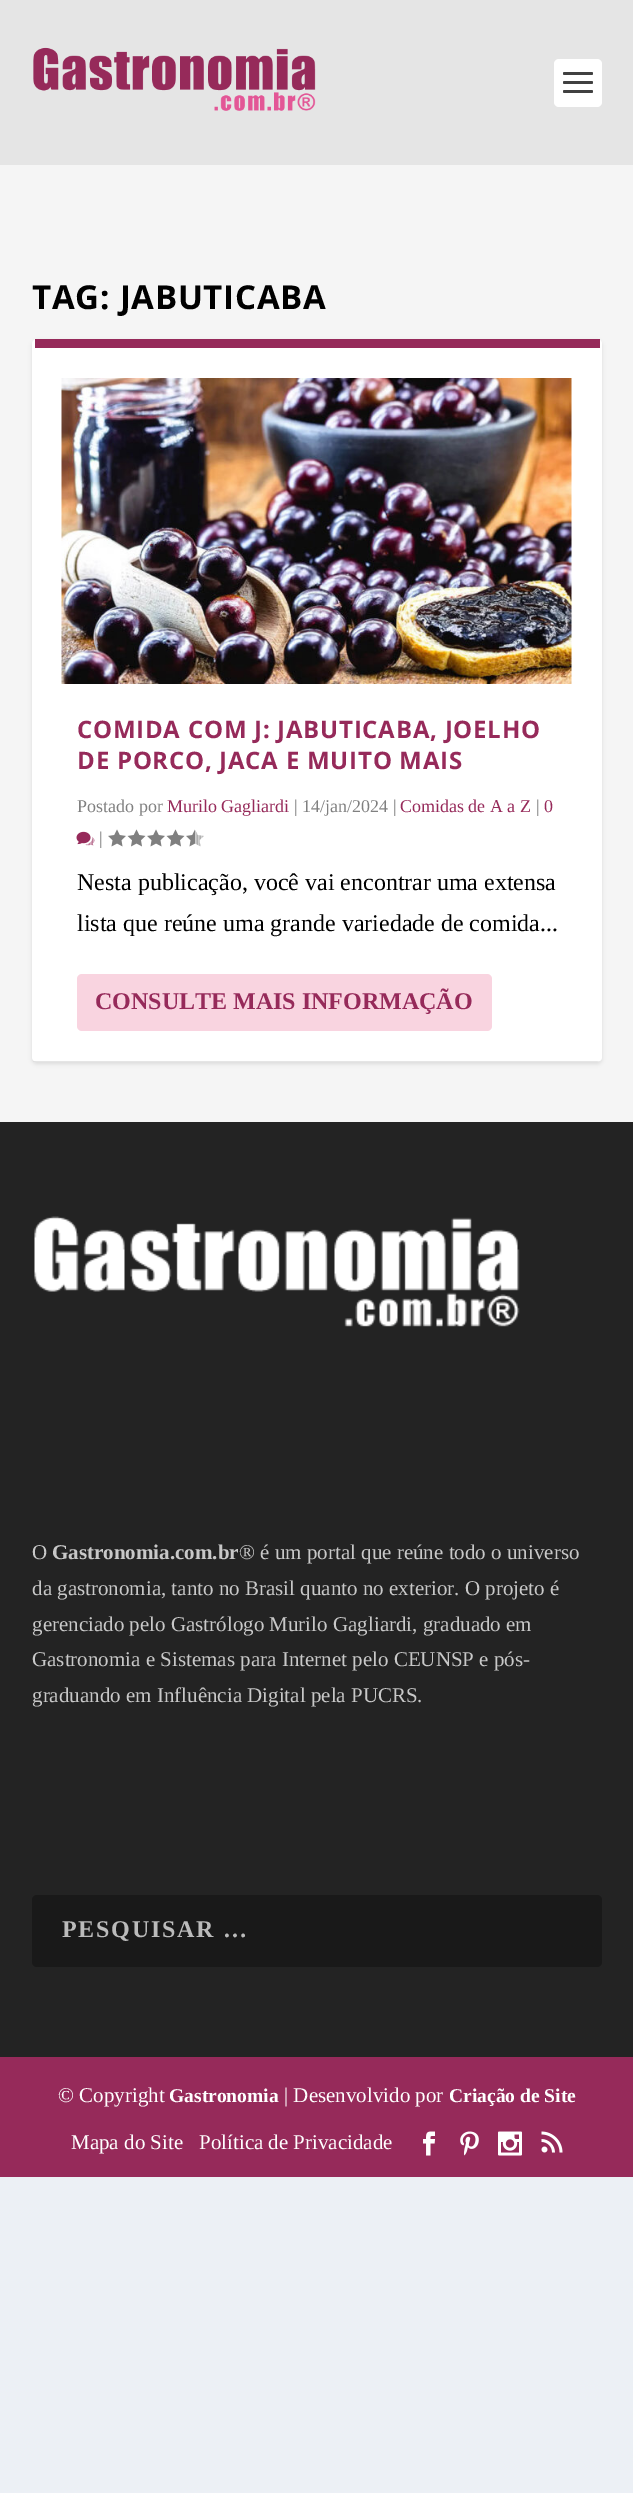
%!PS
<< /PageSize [633 2493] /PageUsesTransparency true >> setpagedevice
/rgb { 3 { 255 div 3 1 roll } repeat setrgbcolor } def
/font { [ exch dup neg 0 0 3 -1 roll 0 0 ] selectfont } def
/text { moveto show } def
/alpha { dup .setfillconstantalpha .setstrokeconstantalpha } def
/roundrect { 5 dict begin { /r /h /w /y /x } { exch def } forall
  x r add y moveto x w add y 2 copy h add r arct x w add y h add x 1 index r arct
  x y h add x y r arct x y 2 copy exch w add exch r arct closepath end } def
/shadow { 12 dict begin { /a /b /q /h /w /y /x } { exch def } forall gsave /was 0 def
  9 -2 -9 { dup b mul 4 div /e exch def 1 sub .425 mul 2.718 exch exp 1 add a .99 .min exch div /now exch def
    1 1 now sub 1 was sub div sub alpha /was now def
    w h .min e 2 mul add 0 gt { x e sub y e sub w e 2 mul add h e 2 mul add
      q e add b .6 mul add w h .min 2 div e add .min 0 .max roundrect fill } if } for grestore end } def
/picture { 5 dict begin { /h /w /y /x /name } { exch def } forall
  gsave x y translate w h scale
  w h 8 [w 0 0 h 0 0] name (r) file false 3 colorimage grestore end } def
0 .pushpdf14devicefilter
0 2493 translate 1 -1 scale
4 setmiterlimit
236 240 245 rgb
0 0 633 2493 rectfill
245 245 245 rgb
0 165 633 957 rectfill
229 229 229 rgb
0 0 633 165 rectfill
(img_01.rgb) 33 47 283 64 picture
255 255 255 rgb
554 59 48 48 5 roundrect fill
64 64 64 rgb
563 72 30 3 1.5 roundrect fill
563 81 30 3 1.5 roundrect fill
563 90 30 3 1.5 roundrect fill
0 0 0 rgb
32 341 570 723 5 2 0.1 shadow
255 255 255 rgb
32 339 570 723 5 roundrect fill
150 42 90 rgb
35 339 565 9 rectfill
0.1 alpha
0 0 0 rgb
600 1061 moveto -3 1 rlineto -467 0 rlineto -94 0 rlineto -3 -1 rlineto closepath fill
1 alpha
(img_02.rgb) 61 378 511 306 picture
(img_03.rgb) 76 831 19 15 picture
(img_04.rgb) 108 829 18 18 picture
(img_05.rgb) 127 829 19 18 picture
(img_04.rgb) 147 829 18 18 picture
(img_05.rgb) 166 829 19 18 picture
(img_06.rgb) 186 829 18 18 picture
249 212 224 rgb
77 974 415 57 5 roundrect fill
35 35 35 rgb
0 1122 633 935 rectfill
(img_07.rgb) 34 1216 486 111 picture
25 25 25 rgb
32 1895 570 72 5 roundrect fill
150 42 90 rgb
0 2057 633 120 rectfill
(img_08.rgb) 423 2131 13 25 picture
(img_09.rgb) 460 2131 19 25 picture
(img_10.rgb) 498 2131 24 25 picture
(img_11.rgb) 541 2131 22 22 picture
/OpenSans-Bold 33 font
0 0 0 rgb
32 309 moveto 0.75 0 (TAG: JABUTICABA) ashow
/OpenSans-Bold 24 font
150 42 90 rgb
77 738 moveto 0.75 0 (COMIDA COM J: JABUTICABA, JOELHO) ashow
77 769 moveto 0.75 0 (DE PORCO, JACA E MUITO MAIS) ashow
/LiberationSerif-Regular 18 font
128 128 128 rgb
(Postado por) 77 812 text
150 42 90 rgb
(Murilo Gagliardi) 167 812 text
128 128 128 rgb
(| 14/jan/2024 |) 294 812 text
150 42 90 rgb
(Comidas de A a Z) 400 812 text
128 128 128 rgb
(|) 536 812 text
150 42 90 rgb
(0) 544 812 text
128 128 128 rgb
(|) 99 844 text
/LiberationSerif-Regular 24 font
0 0 0 rgb
(Nesta publicação, você vai encontrar uma extensa) 77 890 text
(lista que reúne uma grande variedade de comida...) 77 931 text
/LiberationSerif-Bold 24 font
150 42 90 rgb
(CONSULTE MAIS INFORMAÇÃO) 95 1009 text
/LiberationSerif-Regular 21 font
200 200 200 rgb
(O) 32 1559 text
/LiberationSerif-Bold 21 font
(Gastronomia.com.br) 52 1559 text
/LiberationSerif-Regular 21 font
(® é um portal que reúne todo o universo) 239 1559 text
(da gastronomia, tanto no Brasil quanto no exterior. O projeto é) 32 1595 text
(gerenciado pelo Gastrólogo Murilo Gagliardi, graduado em) 32 1631 text
(Gastronomia e Sistemas para Internet pelo CEUNSP e pós-) 32 1666 text
(graduando em Influência Digital pela PUCRS.) 32 1702 text
/LiberationSerif-Bold 24 font
187 187 187 rgb
62 1937 moveto 1.75 0 (PESQUISAR …) ashow
/LiberationSerif-Regular 21 font
255 255 255 rgb
(© Copyright) 58 2102 text
/LiberationSerif-Bold 19.5 font
(Gastronomia) 169 2102 text
/LiberationSerif-Regular 21 font
(| Desenvolvido por) 284 2102 text
/LiberationSerif-Bold 19.5 font
(Criação de Site) 449 2102 text
/LiberationSerif-Regular 21 font
(Mapa do Site) 71 2149 text
(Política de Privacidade) 199 2149 text
.poppdf14devicefilter showpage
